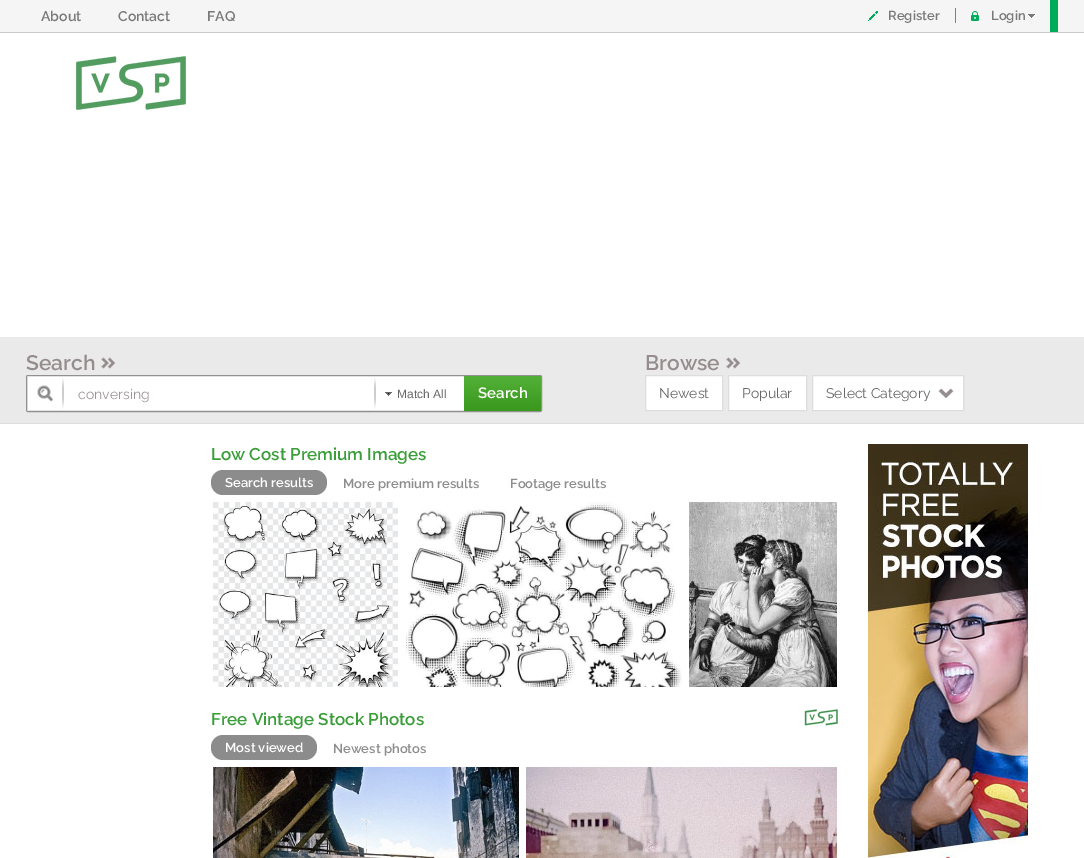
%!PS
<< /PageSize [1084 858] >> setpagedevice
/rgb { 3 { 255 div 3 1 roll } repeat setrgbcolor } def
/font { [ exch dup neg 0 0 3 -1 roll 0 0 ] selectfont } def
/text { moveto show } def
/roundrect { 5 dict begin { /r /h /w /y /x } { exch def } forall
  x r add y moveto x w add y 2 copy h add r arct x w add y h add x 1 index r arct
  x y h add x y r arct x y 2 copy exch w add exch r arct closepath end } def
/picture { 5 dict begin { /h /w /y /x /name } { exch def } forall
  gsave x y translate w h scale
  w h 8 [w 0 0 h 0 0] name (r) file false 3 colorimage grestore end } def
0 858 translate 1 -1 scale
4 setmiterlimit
235 234 234 rgb
0 0 1084 858 rectfill
245 245 245 rgb
0 0 1084 32 rectfill
202 202 202 rgb
0 32 1084 1 rectfill
0 171 90 rgb
1050 0 8 32 rectfill
(img_01.rgb) 868 11 10 10 picture
129 129 129 rgb
955 8 1 15 rectfill
(img_02.rgb) 971 11 8 10 picture
(img_03.rgb) 1028 14 7 4 picture
255 255 255 rgb
0 33 1084 304 rectfill
(img_04.rgb) 76 56 110 54 picture
222 221 221 rgb
0 423 1084 1 rectfill
(img_05.rgb) 101 357 14 12 picture
255 255 255 rgb
26.5 375.5 515 36 1.5 roundrect gsave fill grestore
145 145 145 rgb
stroke
(img_06.rgb) 37 378 27 31 picture
227 227 227 rgb
27 376 437 1 rectfill
27 410 437 1 rectfill
216 216 216 rgb
27 376 1 35 rectfill
(img_07.rgb) 374 377 2 32 picture
(img_08.rgb) 385 392 7 4 picture
(img_09.rgb) 464 376 77 35 picture
(img_05.rgb) 726 357 14 12 picture
255 255 255 rgb
645.5 375.5 moveto 77 0 rlineto 0 35 rlineto -77 0 rlineto closepath gsave fill grestore
221 221 221 rgb
stroke
255 255 255 rgb
728.5 375.5 moveto 78 0 rlineto 0 35 rlineto -78 0 rlineto closepath gsave fill grestore
221 221 221 rgb
stroke
255 255 255 rgb
812.5 375.5 moveto 151 0 rlineto 0 35 rlineto -151 0 rlineto closepath gsave fill grestore
221 221 221 rgb
stroke
(img_10.rgb) 938 388 16 10 picture
255 255 255 rgb
0 424 1084 434 rectfill
140 140 140 rgb
211 470 116 25 12 roundrect fill
(img_11.rgb) 213 502 185 185 picture
(img_12.rgb) 405 502 277 185 picture
(img_13.rgb) 689 502 148 185 picture
(img_14.rgb) 804 709 34 17 picture
211 735 106 25 12 roundrect fill
(img_15.rgb) 213 767 306 91 picture
(img_16.rgb) 526 767 311 91 picture
(img_17.rgb) 868 444 160 414 picture
/Raleway-SemiBold 14 font
121 121 121 rgb
(About) 41 21 text
(Contact) 118 21 text
(FAQ) 207 21 text
/Raleway-SemiBold 13 font
(Register) 888 20 text
(Login) 991 20 text
/Raleway-SemiBold 21 font
149 140 141 rgb
(Search) 26 370 text
/Raleway-Regular 14 font
158 150 150 rgb
(conversing) 78 399 text
/LiberationSans-Regular 12 font
103 103 103 rgb
(Match All) 397 398 text
/Raleway-SemiBold 15 font
255 255 255 rgb
(Search) 478 398 text
/Raleway-SemiBold 21 font
149 140 141 rgb
(Browse) 645 370 text
/Raleway-Regular 14 font
103 103 103 rgb
(Newest) 659 398 text
(Popular) 742 398 text
(Select Category) 826 398 text
/Raleway-SemiBold 17 font
57 157 56 rgb
(Low Cost Premium Images) 211 460 text
/Raleway-SemiBold 13 font
255 255 255 rgb
(Search results) 225 487 text
140 140 140 rgb
(More premium results) 343 488 text
(Footage results) 510 488 text
/Raleway-SemiBold 17 font
57 157 56 rgb
(Free Vintage Stock Photos) 211 725 text
/Raleway-SemiBold 13 font
255 255 255 rgb
(Most viewed) 225 752 text
140 140 140 rgb
(Newest photos) 333 753 text
showpage
